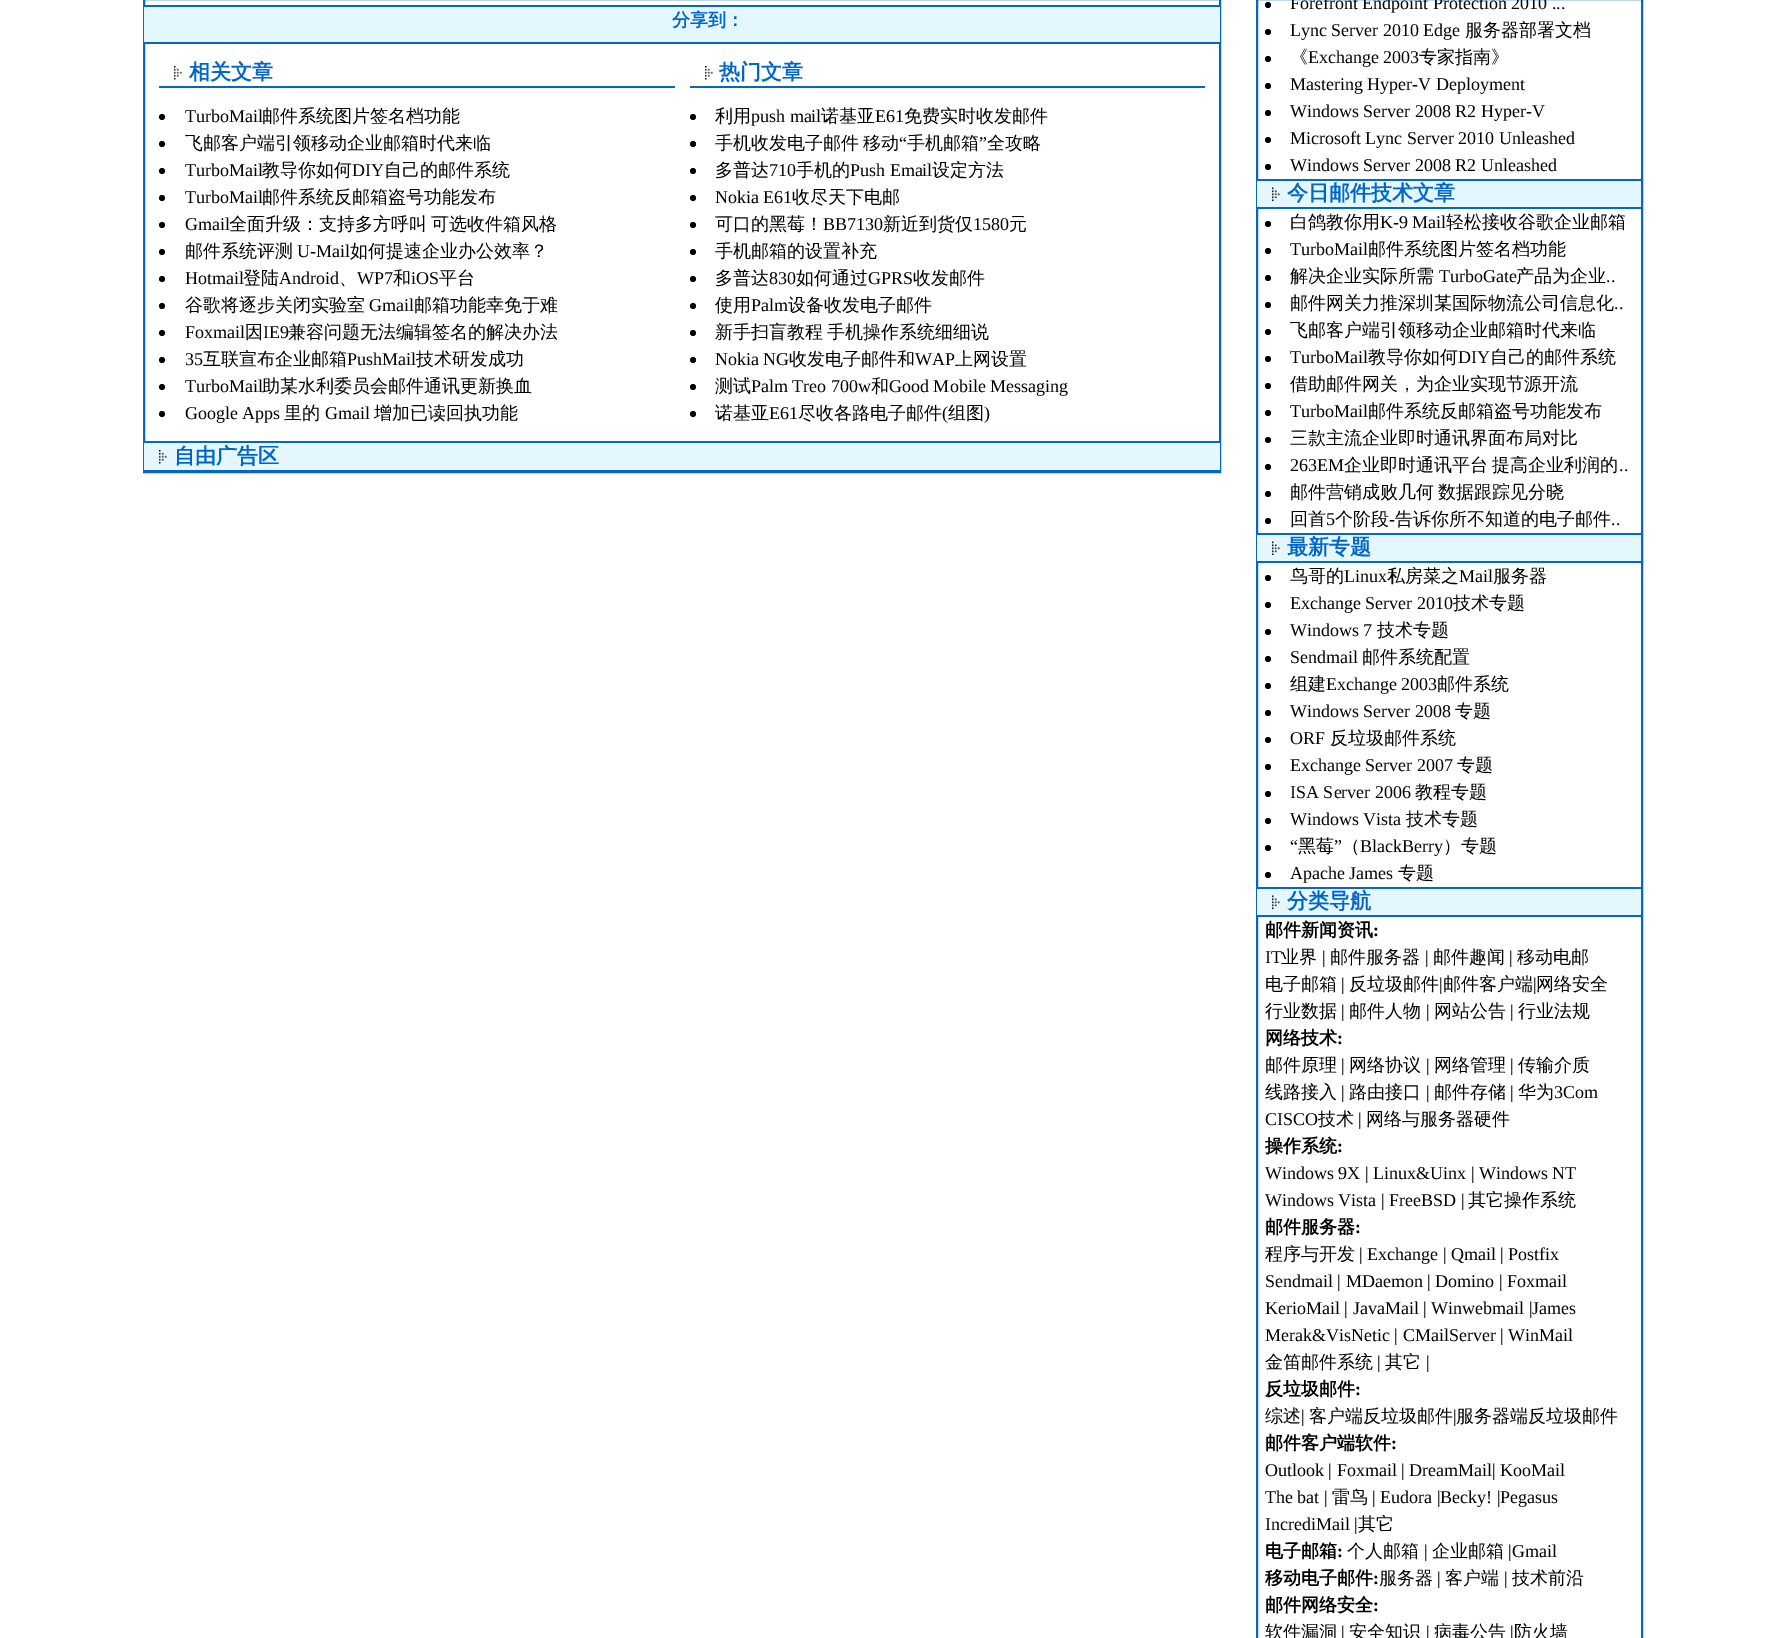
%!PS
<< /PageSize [1785 1638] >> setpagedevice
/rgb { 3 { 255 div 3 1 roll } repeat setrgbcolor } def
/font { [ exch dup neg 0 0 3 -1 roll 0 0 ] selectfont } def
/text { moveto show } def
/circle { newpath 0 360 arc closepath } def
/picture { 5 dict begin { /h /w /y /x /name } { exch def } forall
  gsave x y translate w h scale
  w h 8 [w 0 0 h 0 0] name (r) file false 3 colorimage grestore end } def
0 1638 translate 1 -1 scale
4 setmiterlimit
255 255 255 rgb
0 0 1785 1638 rectfill
7 102 192 rgb
2 setlinewidth
144 -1 1076 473 rectstroke
228 247 254 rgb
144 7 1076 35 rectfill
7 102 192 rgb
144 5 1076 2 rectfill
144 42 1076 2 rectfill
(img_01.rgb) 174 66 8 14 picture
159 86 516 2 rectfill
(img_02.rgb) 705 66 8 14 picture
690 86 515 2 rectfill
0 0 0 rgb
162 117 3 circle fill
162 144 3 circle fill
162 171 3 circle fill
162 198 3 circle fill
162 225 3 circle fill
162 252 3 circle fill
162 279 3 circle fill
162 306 3 circle fill
162 333 3 circle fill
162 360 3 circle fill
162 387 3 circle fill
162 414 3 circle fill
693 117 3 circle fill
693 144 3 circle fill
693 171 3 circle fill
693 198 3 circle fill
693 225 3 circle fill
693 252 3 circle fill
693 279 3 circle fill
693 306 3 circle fill
693 333 3 circle fill
693 360 3 circle fill
693 387 3 circle fill
693 414 3 circle fill
228 247 254 rgb
144 443 1076 27 rectfill
(img_03.rgb) 159 450 8 14 picture
7 102 192 rgb
144 441 1076 2 rectfill
144 470 1076 1 rectfill
1257 -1 385 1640 rectstroke
0 0 0 rgb
1268 5 3 circle fill
1268 32 3 circle fill
1268 59 3 circle fill
1268 86 3 circle fill
1268 113 3 circle fill
1268 140 3 circle fill
1268 167 3 circle fill
228 247 254 rgb
1257 181 384 26 rectfill
(img_04.rgb) 1272 187 8 14 picture
7 102 192 rgb
1257 179 384 2 rectfill
1257 207 384 2 rectfill
0 0 0 rgb
1268 224 3 circle fill
1268 251 3 circle fill
1268 278 3 circle fill
1268 305 3 circle fill
1268 332 3 circle fill
1268 359 3 circle fill
1268 386 3 circle fill
1268 413 3 circle fill
1268 440 3 circle fill
1268 467 3 circle fill
1268 494 3 circle fill
1268 521 3 circle fill
228 247 254 rgb
1257 535 384 26 rectfill
(img_04.rgb) 1272 541 8 14 picture
7 102 192 rgb
1257 533 384 2 rectfill
1257 561 384 2 rectfill
0 0 0 rgb
1268 578 3 circle fill
1268 605 3 circle fill
1268 632 3 circle fill
1268 659 3 circle fill
1268 686 3 circle fill
1268 713 3 circle fill
1268 740 3 circle fill
1268 767 3 circle fill
1268 794 3 circle fill
1268 821 3 circle fill
1268 848 3 circle fill
1268 875 3 circle fill
228 247 254 rgb
1257 889 384 26 rectfill
(img_04.rgb) 1272 895 8 14 picture
7 102 192 rgb
1257 887 384 2 rectfill
1257 915 384 2 rectfill
/WenQuanYiZenHei-Bold 18 font
0 102 203 rgb
(分享到：) 672 26 text
/WenQuanYiZenHei-Bold 21 font
(相关文章) 189 79 text
(热门文章) 719 79 text
/LiberationSerif-Regular 18 font
0 0 0 rgb
(TurboMail) 185 122 text
/WenQuanYiZenHei-Medium 18 font
(邮件系统图片签名档功能) 262 122 text
(飞邮客户端引领移动企业邮箱时代来临) 185 149 text
/LiberationSerif-Regular 18 font
(TurboMail) 185 176 text
/WenQuanYiZenHei-Medium 18 font
(教导你如何) 262 176 text
/LiberationSerif-Regular 18 font
(DIY) 352 176 text
/WenQuanYiZenHei-Medium 18 font
(自己的邮件系统) 384 176 text
/LiberationSerif-Regular 18 font
(TurboMail) 185 203 text
/WenQuanYiZenHei-Medium 18 font
(邮件系统反邮箱盗号功能发布) 262 203 text
/LiberationSerif-Regular 18 font
(Gmail) 185 230 text
/WenQuanYiZenHei-Medium 18 font
229 230 moveto -1 0 32 (全面升级：支持多方呼叫 可选收件箱风格) widthshow
(邮件系统评测) 185 257 text
/LiberationSerif-Regular 18 font
(U-Mail) 297 257 text
/WenQuanYiZenHei-Medium 18 font
(如何提速企业办公效率？) 350 257 text
/LiberationSerif-Regular 18 font
(Hotmail) 185 284 text
/WenQuanYiZenHei-Medium 18 font
(登陆) 243 284 text
/LiberationSerif-Regular 18 font
(Android) 279 284 text
(WP7) 357 284 text
/WenQuanYiZenHei-Medium 18 font
(和) 393 284 text
/LiberationSerif-Regular 18 font
(iOS) 411 284 text
/WenQuanYiZenHei-Medium 18 font
(平台) 439 284 text
(、) 339 284 text
(谷歌将逐步关闭实验室) 185 311 text
/LiberationSerif-Regular 18 font
(Gmail) 369 311 text
/WenQuanYiZenHei-Medium 18 font
(邮箱功能幸免于难) 414 311 text
/LiberationSerif-Regular 18 font
(Foxmail) 185 338 text
/WenQuanYiZenHei-Medium 18 font
(因) 245 338 text
/LiberationSerif-Regular 18 font
(IE9) 263 338 text
/WenQuanYiZenHei-Medium 18 font
(兼容问题无法编辑签名的解决办法) 288 338 text
/LiberationSerif-Regular 18 font
(35) 185 365 text
/WenQuanYiZenHei-Medium 18 font
(互联宣布企业邮箱) 203 365 text
/LiberationSerif-Regular 18 font
(PushMail) 347 365 text
/WenQuanYiZenHei-Medium 18 font
(技术研发成功) 416 365 text
/LiberationSerif-Regular 18 font
(TurboMail) 185 392 text
/WenQuanYiZenHei-Medium 18 font
(助某水利委员会邮件通讯更新换血) 262 392 text
/LiberationSerif-Regular 18 font
(Google Apps) 185 419 text
/WenQuanYiZenHei-Medium 18 font
(里的) 284 419 text
/LiberationSerif-Regular 18 font
(Gmail) 325 419 text
/WenQuanYiZenHei-Medium 18 font
(增加已读回执功能) 374 419 text
(利用) 715 122 text
/LiberationSerif-Regular 18 font
(push mail) 751 122 text
/WenQuanYiZenHei-Medium 18 font
(诺基亚) 821 122 text
/LiberationSerif-Regular 18 font
(E61) 875 122 text
/WenQuanYiZenHei-Medium 18 font
(免费实时收发邮件) 904 122 text
715 149 moveto -1 0 32 (手机收发电子邮件 移动) widthshow
/LiberationSerif-Regular 18 font
(“) 899 149 text
/WenQuanYiZenHei-Medium 18 font
(手机邮箱) 907 149 text
/LiberationSerif-Regular 18 font
(”) 979 149 text
/WenQuanYiZenHei-Medium 18 font
(全攻略) 987 149 text
(多普达) 715 176 text
/LiberationSerif-Regular 18 font
(710) 769 176 text
/WenQuanYiZenHei-Medium 18 font
(手机的) 796 176 text
/LiberationSerif-Regular 18 font
(Push Email) 850 176 text
/WenQuanYiZenHei-Medium 18 font
(设定方法) 932 176 text
/LiberationSerif-Regular 18 font
(Nokia E61) 715 203 text
/WenQuanYiZenHei-Medium 18 font
(收尽天下电邮) 792 203 text
(可口的黑莓！) 715 230 text
/LiberationSerif-Regular 18 font
(BB7130) 823 230 text
/WenQuanYiZenHei-Medium 18 font
(新近到货仅) 883 230 text
/LiberationSerif-Regular 18 font
(1580) 973 230 text
/WenQuanYiZenHei-Medium 18 font
(元) 1009 230 text
(手机邮箱的设置补充) 715 257 text
(多普达) 715 284 text
/LiberationSerif-Regular 18 font
(830) 769 284 text
/WenQuanYiZenHei-Medium 18 font
(如何通过) 796 284 text
/LiberationSerif-Regular 18 font
(GPRS) 868 284 text
/WenQuanYiZenHei-Medium 18 font
(收发邮件) 913 284 text
(使用) 715 311 text
/LiberationSerif-Regular 18 font
(Palm) 751 311 text
/WenQuanYiZenHei-Medium 18 font
(设备收发电子邮件) 788 311 text
715 338 moveto -1 0 32 (新手扫盲教程 手机操作系统细细说) widthshow
/LiberationSerif-Regular 18 font
(Nokia NG) 715 365 text
/WenQuanYiZenHei-Medium 18 font
(收发电子邮件和) 789 365 text
/LiberationSerif-Regular 18 font
(WAP) 915 365 text
/WenQuanYiZenHei-Medium 18 font
(上网设置) 955 365 text
(测试) 715 392 text
/LiberationSerif-Regular 18 font
(Palm Treo 700w) 751 392 text
/WenQuanYiZenHei-Medium 18 font
(和) 871 392 text
/LiberationSerif-Regular 18 font
(Good Mobile Messaging) 889 392 text
/WenQuanYiZenHei-Medium 18 font
(诺基亚) 715 419 text
/LiberationSerif-Regular 18 font
(E61) 769 419 text
/WenQuanYiZenHei-Medium 18 font
(尽收各路电子邮件) 798 419 text
/LiberationSerif-Regular 18 font
(\() 942 419 text
/WenQuanYiZenHei-Medium 18 font
(组图) 948 419 text
/LiberationSerif-Regular 18 font
(\)) 984 419 text
/WenQuanYiZenHei-Bold 21 font
0 102 203 rgb
(自由广告区) 174 463 text
/LiberationSerif-Regular 18 font
0 0 0 rgb
(Forefront Endpoint Protection 2010 ...) 1290 9 text
(Lync Server 2010 Edge) 1290 36 text
/WenQuanYiZenHei-Medium 18 font
(服务器部署文档) 1465 36 text
(《) 1290 63 text
/LiberationSerif-Regular 18 font
(Exchange 2003) 1308 63 text
/WenQuanYiZenHei-Medium 18 font
(专家指南》) 1419 63 text
/LiberationSerif-Regular 18 font
(Mastering Hyper-V Deployment) 1290 90 text
(Windows Server 2008 R2 Hyper-V) 1290 117 text
(Microsoft Lync Server 2010 Unleashed) 1290 144 text
(Windows Server 2008 R2 Unleashed) 1290 171 text
/WenQuanYiZenHei-Bold 21 font
0 102 203 rgb
(今日邮件技术文章) 1287 200 text
/WenQuanYiZenHei-Medium 18 font
0 0 0 rgb
(白鸽教你用) 1290 228 text
/LiberationSerif-Regular 18 font
(K-9 Mail) 1380 228 text
/WenQuanYiZenHei-Medium 18 font
(轻松接收谷歌企业邮箱) 1446 228 text
/LiberationSerif-Regular 18 font
(TurboMail) 1290 255 text
/WenQuanYiZenHei-Medium 18 font
(邮件系统图片签名档功能) 1368 255 text
(解决企业实际所需) 1290 282 text
/LiberationSerif-Regular 18 font
(TurboGate) 1439 282 text
/WenQuanYiZenHei-Medium 18 font
(产品为企业) 1516 282 text
/LiberationSerif-Regular 18 font
(..) 1606 282 text
/WenQuanYiZenHei-Medium 18 font
(邮件网关力推深圳某国际物流公司信息化) 1290 309 text
/LiberationSerif-Regular 18 font
(..) 1614 309 text
/WenQuanYiZenHei-Medium 18 font
(飞邮客户端引领移动企业邮箱时代来临) 1290 336 text
/LiberationSerif-Regular 18 font
(TurboMail) 1290 363 text
/WenQuanYiZenHei-Medium 18 font
(教导你如何) 1368 363 text
/LiberationSerif-Regular 18 font
(DIY) 1458 363 text
/WenQuanYiZenHei-Medium 18 font
(自己的邮件系统) 1490 363 text
(借助邮件网关，为企业实现节源开流) 1290 390 text
/LiberationSerif-Regular 18 font
(TurboMail) 1290 417 text
/WenQuanYiZenHei-Medium 18 font
(邮件系统反邮箱盗号功能发布) 1368 417 text
(三款主流企业即时通讯界面布局对比) 1290 444 text
/LiberationSerif-Regular 18 font
(263EM) 1290 471 text
/WenQuanYiZenHei-Medium 18 font
1344 471 moveto -1 0 32 (企业即时通讯平台 提高企业利润的) widthshow
/LiberationSerif-Regular 18 font
(..) 1619 471 text
/WenQuanYiZenHei-Medium 18 font
1290 498 moveto -1 0 32 (邮件营销成败几何 数据跟踪见分晓) widthshow
(回首) 1290 525 text
/LiberationSerif-Regular 18 font
(5) 1326 525 text
/WenQuanYiZenHei-Medium 18 font
(个阶段) 1335 525 text
/LiberationSerif-Regular 18 font
(-) 1389 525 text
/WenQuanYiZenHei-Medium 18 font
(告诉你所不知道的电子邮件) 1395 525 text
/LiberationSerif-Regular 18 font
(..) 1611 525 text
/WenQuanYiZenHei-Bold 21 font
0 102 203 rgb
(最新专题) 1287 554 text
/WenQuanYiZenHei-Medium 18 font
0 0 0 rgb
(鸟哥的) 1290 582 text
/LiberationSerif-Regular 18 font
(Linux) 1344 582 text
/WenQuanYiZenHei-Medium 18 font
(私房菜之) 1387 582 text
/LiberationSerif-Regular 18 font
(Mail) 1459 582 text
/WenQuanYiZenHei-Medium 18 font
(服务器) 1493 582 text
/LiberationSerif-Regular 18 font
(Exchange Server 2010) 1290 609 text
/WenQuanYiZenHei-Medium 18 font
(技术专题) 1453 609 text
/LiberationSerif-Regular 18 font
(Windows 7) 1290 636 text
/WenQuanYiZenHei-Medium 18 font
(技术专题) 1377 636 text
/LiberationSerif-Regular 18 font
(Sendmail) 1290 663 text
/WenQuanYiZenHei-Medium 18 font
(邮件系统配置) 1362 663 text
(组建) 1290 690 text
/LiberationSerif-Regular 18 font
(Exchange 2003) 1326 690 text
/WenQuanYiZenHei-Medium 18 font
(邮件系统) 1437 690 text
/LiberationSerif-Regular 18 font
(Windows Server 2008) 1290 717 text
/WenQuanYiZenHei-Medium 18 font
(专题) 1455 717 text
/LiberationSerif-Regular 18 font
(ORF) 1290 744 text
/WenQuanYiZenHei-Medium 18 font
(反垃圾邮件系统) 1330 744 text
/LiberationSerif-Regular 18 font
(Exchange Server 2007) 1290 771 text
/WenQuanYiZenHei-Medium 18 font
(专题) 1457 771 text
/LiberationSerif-Regular 18 font
(ISA Server 2006) 1290 798 text
/WenQuanYiZenHei-Medium 18 font
(教程专题) 1415 798 text
/LiberationSerif-Regular 18 font
(Windows Vista) 1290 825 text
/WenQuanYiZenHei-Medium 18 font
(技术专题) 1406 825 text
/LiberationSerif-Regular 18 font
(“) 1290 852 text
/WenQuanYiZenHei-Medium 18 font
(黑莓) 1298 852 text
/LiberationSerif-Regular 18 font
(”) 1334 852 text
/WenQuanYiZenHei-Medium 18 font
(（) 1342 852 text
/LiberationSerif-Regular 18 font
(BlackBerry) 1360 852 text
/WenQuanYiZenHei-Medium 18 font
(）专题) 1443 852 text
/LiberationSerif-Regular 18 font
(Apache James) 1290 879 text
/WenQuanYiZenHei-Medium 18 font
(专题) 1398 879 text
/WenQuanYiZenHei-Bold 21 font
0 102 203 rgb
(分类导航) 1287 908 text
/WenQuanYiZenHei-Bold 18 font
0 0 0 rgb
(邮件新闻资讯) 1265 936 text
/LiberationSerif-Bold 18 font
(:) 1373 936 text
/LiberationSerif-Regular 18 font
(IT) 1265 963 text
/WenQuanYiZenHei-Medium 18 font
(业界) 1281 963 text
/LiberationSerif-Regular 18 font
(|) 1322 963 text
/WenQuanYiZenHei-Medium 18 font
(邮件服务器) 1330 963 text
/LiberationSerif-Regular 18 font
(|) 1425 963 text
/WenQuanYiZenHei-Medium 18 font
(邮件趣闻) 1433 963 text
/LiberationSerif-Regular 18 font
(|) 1509 963 text
/WenQuanYiZenHei-Medium 18 font
(移动电邮) 1517 963 text
(电子邮箱) 1265 990 text
/LiberationSerif-Regular 18 font
(|) 1341 990 text
/WenQuanYiZenHei-Medium 18 font
(反垃圾邮件) 1349 990 text
/LiberationSerif-Regular 18 font
(|) 1439 990 text
/WenQuanYiZenHei-Medium 18 font
(邮件客户端) 1443 990 text
/LiberationSerif-Regular 18 font
(|) 1533 990 text
/WenQuanYiZenHei-Medium 18 font
(网络安全) 1536 990 text
(行业数据) 1265 1017 text
/LiberationSerif-Regular 18 font
(|) 1341 1017 text
/WenQuanYiZenHei-Medium 18 font
(邮件人物) 1349 1017 text
/LiberationSerif-Regular 18 font
(|) 1426 1017 text
/WenQuanYiZenHei-Medium 18 font
(网站公告) 1434 1017 text
/LiberationSerif-Regular 18 font
(|) 1510 1017 text
/WenQuanYiZenHei-Medium 18 font
(行业法规) 1518 1017 text
/WenQuanYiZenHei-Bold 18 font
(网络技术) 1265 1044 text
/LiberationSerif-Bold 18 font
(:) 1337 1044 text
/WenQuanYiZenHei-Medium 18 font
(邮件原理) 1265 1071 text
/LiberationSerif-Regular 18 font
(|) 1341 1071 text
/WenQuanYiZenHei-Medium 18 font
(网络协议) 1349 1071 text
/LiberationSerif-Regular 18 font
(|) 1426 1071 text
/WenQuanYiZenHei-Medium 18 font
(网络管理) 1434 1071 text
/LiberationSerif-Regular 18 font
(|) 1510 1071 text
/WenQuanYiZenHei-Medium 18 font
(传输介质) 1518 1071 text
(线路接入) 1265 1098 text
/LiberationSerif-Regular 18 font
(|) 1341 1098 text
/WenQuanYiZenHei-Medium 18 font
(路由接口) 1349 1098 text
/LiberationSerif-Regular 18 font
(|) 1426 1098 text
/WenQuanYiZenHei-Medium 18 font
(邮件存储) 1434 1098 text
/LiberationSerif-Regular 18 font
(|) 1510 1098 text
/WenQuanYiZenHei-Medium 18 font
(华为) 1518 1098 text
/LiberationSerif-Regular 18 font
(3Com) 1554 1098 text
(CISCO) 1265 1125 text
/WenQuanYiZenHei-Medium 18 font
(技术) 1318 1125 text
/LiberationSerif-Regular 18 font
(|) 1358 1125 text
/WenQuanYiZenHei-Medium 18 font
(网络与服务器硬件) 1366 1125 text
/WenQuanYiZenHei-Bold 18 font
(操作系统) 1265 1152 text
/LiberationSerif-Bold 18 font
(:) 1337 1152 text
/LiberationSerif-Regular 18 font
(Windows 9X | Linux&Uinx | Windows NT) 1265 1179 text
(Windows Vista | FreeBSD |) 1265 1206 text
/WenQuanYiZenHei-Medium 18 font
(其它操作系统) 1468 1206 text
/WenQuanYiZenHei-Bold 18 font
(邮件服务器) 1265 1233 text
/LiberationSerif-Bold 18 font
(:) 1355 1233 text
/WenQuanYiZenHei-Medium 18 font
(程序与开发) 1265 1260 text
/LiberationSerif-Regular 18 font
(| Exchange | Qmail | Postfix) 1359 1260 text
(Sendmail | MDaemon | Domino | Foxmail) 1265 1287 text
(KerioMail | JavaMail | Winwebmail |James) 1265 1314 text
(Merak&VisNetic | CMailServer | WinMail) 1265 1341 text
/WenQuanYiZenHei-Medium 18 font
(金笛邮件系统) 1265 1368 text
/LiberationSerif-Regular 18 font
(|) 1377 1368 text
/WenQuanYiZenHei-Medium 18 font
(其它) 1385 1368 text
/LiberationSerif-Regular 18 font
(|) 1426 1368 text
/WenQuanYiZenHei-Bold 18 font
(反垃圾邮件) 1265 1395 text
/LiberationSerif-Bold 18 font
(:) 1355 1395 text
/WenQuanYiZenHei-Medium 18 font
(综述) 1265 1422 text
/LiberationSerif-Regular 18 font
(|) 1301 1422 text
/WenQuanYiZenHei-Medium 18 font
(客户端反垃圾邮件) 1309 1422 text
/LiberationSerif-Regular 18 font
(|) 1453 1422 text
/WenQuanYiZenHei-Medium 18 font
(服务器端反垃圾邮件) 1456 1422 text
/WenQuanYiZenHei-Bold 18 font
(邮件客户端软件) 1265 1449 text
/LiberationSerif-Bold 18 font
(:) 1391 1449 text
/LiberationSerif-Regular 18 font
(Outlook | Foxmail | DreamMail| KooMail) 1265 1476 text
(The bat |) 1265 1503 text
/WenQuanYiZenHei-Medium 18 font
(雷鸟) 1332 1503 text
/LiberationSerif-Regular 18 font
(| Eudora |Becky! |Pegasus) 1372 1503 text
(IncrediMail |) 1265 1530 text
/WenQuanYiZenHei-Medium 18 font
(其它) 1358 1530 text
/WenQuanYiZenHei-Bold 18 font
(电子邮箱) 1265 1557 text
/LiberationSerif-Bold 18 font
(:) 1337 1557 text
/WenQuanYiZenHei-Medium 18 font
(个人邮箱) 1347 1557 text
/LiberationSerif-Regular 18 font
(|) 1424 1557 text
/WenQuanYiZenHei-Medium 18 font
(企业邮箱) 1432 1557 text
/LiberationSerif-Regular 18 font
(|Gmail) 1508 1557 text
/WenQuanYiZenHei-Bold 18 font
(移动电子邮件) 1265 1584 text
/LiberationSerif-Bold 18 font
(:) 1373 1584 text
/WenQuanYiZenHei-Medium 18 font
(服务器) 1379 1584 text
/LiberationSerif-Regular 18 font
(|) 1437 1584 text
/WenQuanYiZenHei-Medium 18 font
(客户端) 1445 1584 text
/LiberationSerif-Regular 18 font
(|) 1504 1584 text
/WenQuanYiZenHei-Medium 18 font
(技术前沿) 1512 1584 text
/WenQuanYiZenHei-Bold 18 font
(邮件网络安全) 1265 1611 text
/LiberationSerif-Bold 18 font
(:) 1373 1611 text
/WenQuanYiZenHei-Medium 18 font
(软件漏洞) 1265 1638 text
/LiberationSerif-Regular 18 font
(|) 1341 1638 text
/WenQuanYiZenHei-Medium 18 font
(安全知识) 1349 1638 text
/LiberationSerif-Regular 18 font
(|) 1426 1638 text
/WenQuanYiZenHei-Medium 18 font
(病毒公告) 1434 1638 text
/LiberationSerif-Regular 18 font
(|) 1510 1638 text
/WenQuanYiZenHei-Medium 18 font
(防火墙) 1514 1638 text
showpage
